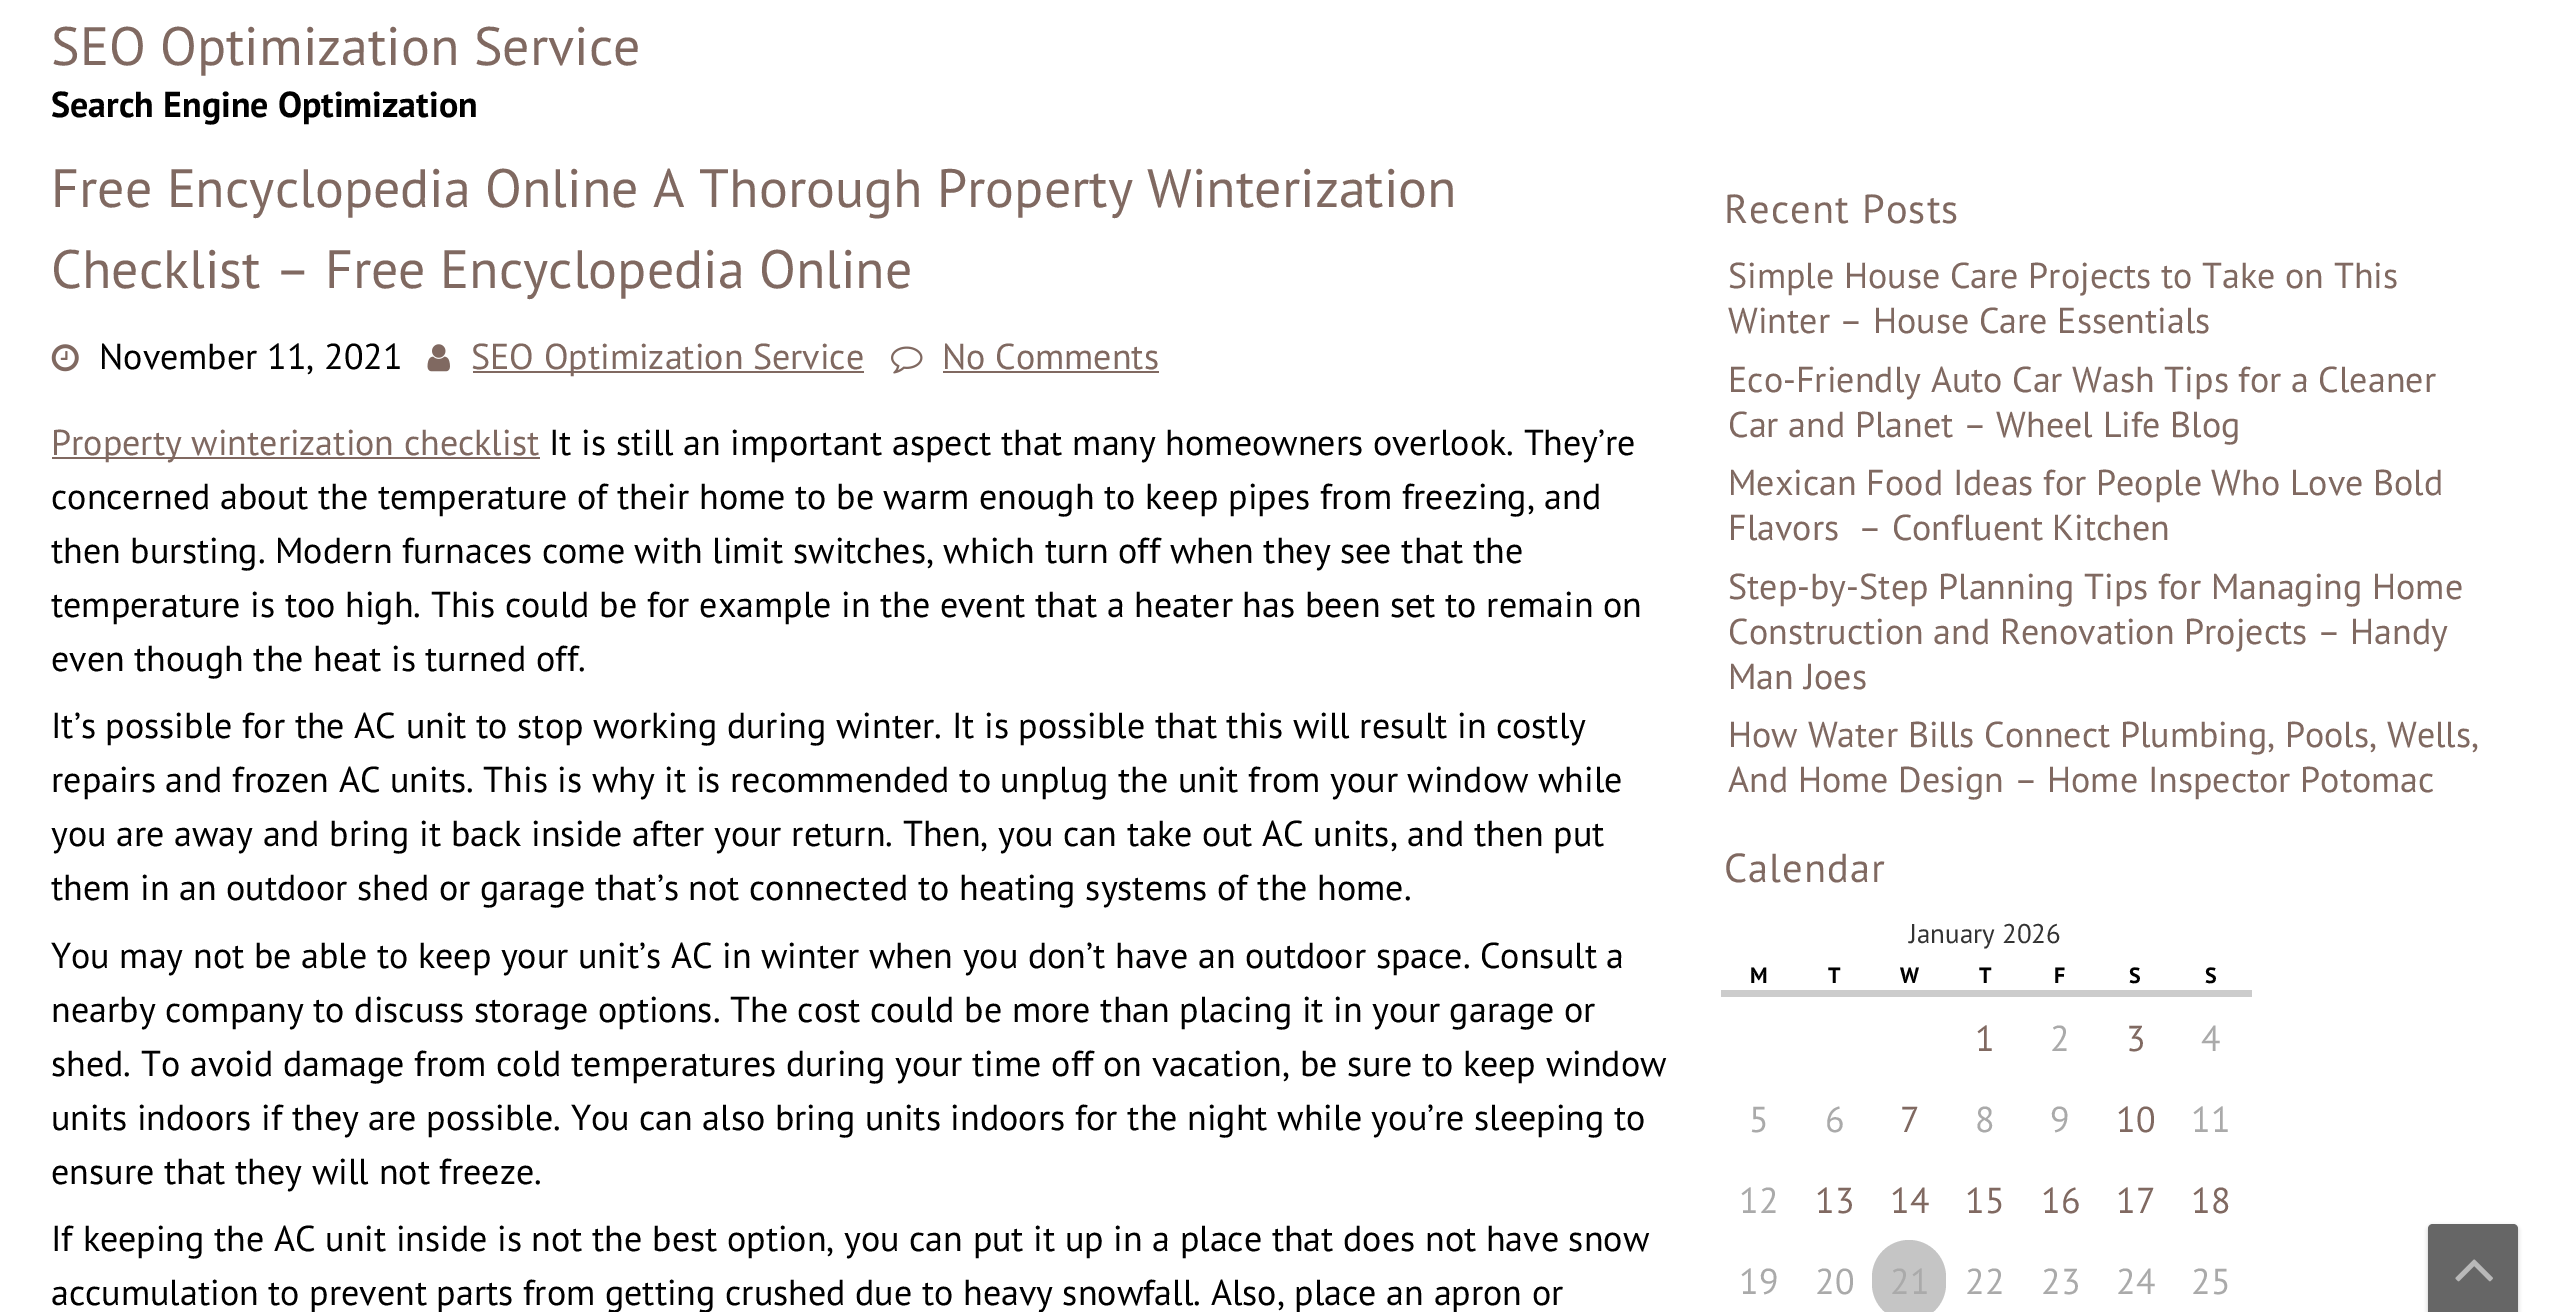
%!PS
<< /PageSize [2569 1312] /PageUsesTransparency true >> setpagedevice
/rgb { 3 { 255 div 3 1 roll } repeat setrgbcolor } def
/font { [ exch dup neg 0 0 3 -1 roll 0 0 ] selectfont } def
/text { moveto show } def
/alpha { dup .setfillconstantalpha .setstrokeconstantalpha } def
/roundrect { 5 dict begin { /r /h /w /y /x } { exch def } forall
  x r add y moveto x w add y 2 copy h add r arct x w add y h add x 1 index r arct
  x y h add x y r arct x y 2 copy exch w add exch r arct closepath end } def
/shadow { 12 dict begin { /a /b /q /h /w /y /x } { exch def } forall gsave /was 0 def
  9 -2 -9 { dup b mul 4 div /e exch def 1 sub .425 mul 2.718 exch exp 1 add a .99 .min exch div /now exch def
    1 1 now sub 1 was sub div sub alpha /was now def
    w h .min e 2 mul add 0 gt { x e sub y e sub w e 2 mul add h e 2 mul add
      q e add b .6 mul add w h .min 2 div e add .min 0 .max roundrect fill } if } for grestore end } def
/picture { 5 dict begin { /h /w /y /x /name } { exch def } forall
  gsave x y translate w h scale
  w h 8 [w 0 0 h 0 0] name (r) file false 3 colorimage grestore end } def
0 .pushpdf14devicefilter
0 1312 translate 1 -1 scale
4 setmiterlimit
255 255 255 rgb
0 0 2569 1312 rectfill
(img_01.rgb) 51 344 28 28 picture
(img_02.rgb) 427 344 23 28 picture
128 105 97 rgb
473 371 391 2 rectfill
(img_03.rgb) 891 346 32 28 picture
943 371 216 2 rectfill
52 457 488 2 rectfill
204 204 204 rgb
1721 990 531 7 rectfill
197 197 197 rgb
1872 1240 74 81 37 roundrect fill
26 26 26 rgb
2428 1226 90 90 5 2 0.25 shadow
102 102 102 rgb
2433 1224 moveto 80 0 rlineto 3 0 5 2 5 5 rcurveto 0 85 rlineto -90 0 rlineto 0 -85 rlineto 0 -3 2 -5 5 -5 rcurveto closepath fill
(img_04.rgb) 2455 1259 38 23 picture
/PTSans-Regular 54 font
128 105 97 rgb
(SEO Optimization Service) 51 65 text
/PTSans-Bold 36 font
0 0 0 rgb
(Search Engine Optimization) 51 117 text
/PTSans-Regular 54 font
128 105 97 rgb
(Free Encyclopedia Online A Thorough Property Winterization) 51 207 text
(Checklist – Free Encyclopedia Online) 51 288 text
/PTSans-Regular 36 font
0 0 0 rgb
(November 11, 2021) 99 369 text
128 105 97 rgb
(SEO Optimization Service) 471 369 text
(No Comments) 942 369 text
(Property winterization checklist) 51 455 text
0 0 0 rgb
(It is still an important aspect that many homeowners overlook. They’re) 549 455 text
(concerned about the temperature of their home to be warm enough to keep pipes from freezing, and) 51 509 text
(then bursting. Modern furnaces come with limit switches, which turn off when they see that the) 51 563 text
(temperature is too high. This could be for example in the event that a heater has been set to remain on) 51 617 text
(even though the heat is turned off.) 51 671 text
(It’s possible for the AC unit to stop working during winter. It is possible that this will result in costly) 51 738 text
(repairs and frozen AC units. This is why it is recommended to unplug the unit from your window while) 51 792 text
(you are away and bring it back inside after your return. Then, you can take out AC units, and then put) 51 846 text
(them in an outdoor shed or garage that’s not connected to heating systems of the home.) 51 900 text
(You may not be able to keep your unit’s AC in winter when you don’t have an outdoor space. Consult a) 51 968 text
(nearby company to discuss storage options. The cost could be more than placing it in your garage or) 51 1022 text
(shed. To avoid damage from cold temperatures during your time off on vacation, be sure to keep window) 51 1076 text
(units indoors if they are possible. You can also bring units indoors for the night while you’re sleeping to) 51 1130 text
(ensure that they will not freeze.) 51 1184 text
(If keeping the AC unit inside is not the best option, you can put it up in a place that does not have snow) 51 1251 text
(accumulation to prevent parts from getting crushed due to heavy snowfall. Also, place an apron or) 51 1305 text
/PTSans-Regular 40.5 font
128 105 97 rgb
1724 223 moveto 1.1 0 (Recent Posts) ashow
/PTSans-Regular 36 font
(Simple House Care Projects to Take on This) 1728 288 text
(Winter – House Care Essentials) 1728 333 text
(Eco-Friendly Auto Car Wash Tips for a Cleaner) 1728 392 text
(Car and Planet – Wheel Life Blog) 1728 437 text
(Mexican Food Ideas for People Who Love Bold) 1728 495 text
(Flavors  – Confluent Kitchen) 1728 540 text
(Step-by-Step Planning Tips for Managing Home) 1728 599 text
(Construction and Renovation Projects – Handy) 1728 644 text
(Man Joes) 1728 689 text
(How Water Bills Connect Plumbing, Pools, Wells,) 1728 747 text
(And Home Design – Home Inspector Potomac) 1728 792 text
/PTSans-Regular 40.5 font
1724 882 moveto 1.1 0 (Calendar) ashow
/PTSans-Regular 27 font
51 51 51 rgb
(January 2026) 1909 943 text
/PTSans-Bold 22 font
0 0 0 rgb
(M) 1750 983 text
(T) 1828 983 text
(W) 1900 983 text
(T) 1979 983 text
(F) 2054 983 text
(S) 2129 983 text
(S) 2205 983 text
/PTSans-Regular 36 font
128 105 97 rgb
(1) 1975 1051 text
170 170 170 rgb
(2) 2050 1051 text
128 105 97 rgb
(3) 2126 1051 text
170 170 170 rgb
(4) 2201 1051 text
(5) 1749 1132 text
(6) 1825 1132 text
128 105 97 rgb
(7) 1900 1132 text
170 170 170 rgb
(8) 1975 1132 text
(9) 2050 1132 text
128 105 97 rgb
(10) 2116 1132 text
170 170 170 rgb
(11) 2191 1132 text
(12) 1739 1213 text
128 105 97 rgb
(13) 1815 1213 text
(14) 1890 1213 text
(15) 1965 1213 text
(16) 2041 1213 text
(17) 2116 1213 text
(18) 2191 1213 text
170 170 170 rgb
(19) 1739 1294 text
(20) 1815 1294 text
(21) 1890 1294 text
(22) 1965 1294 text
(23) 2041 1294 text
(24) 2116 1294 text
(25) 2191 1294 text
.poppdf14devicefilter showpage
